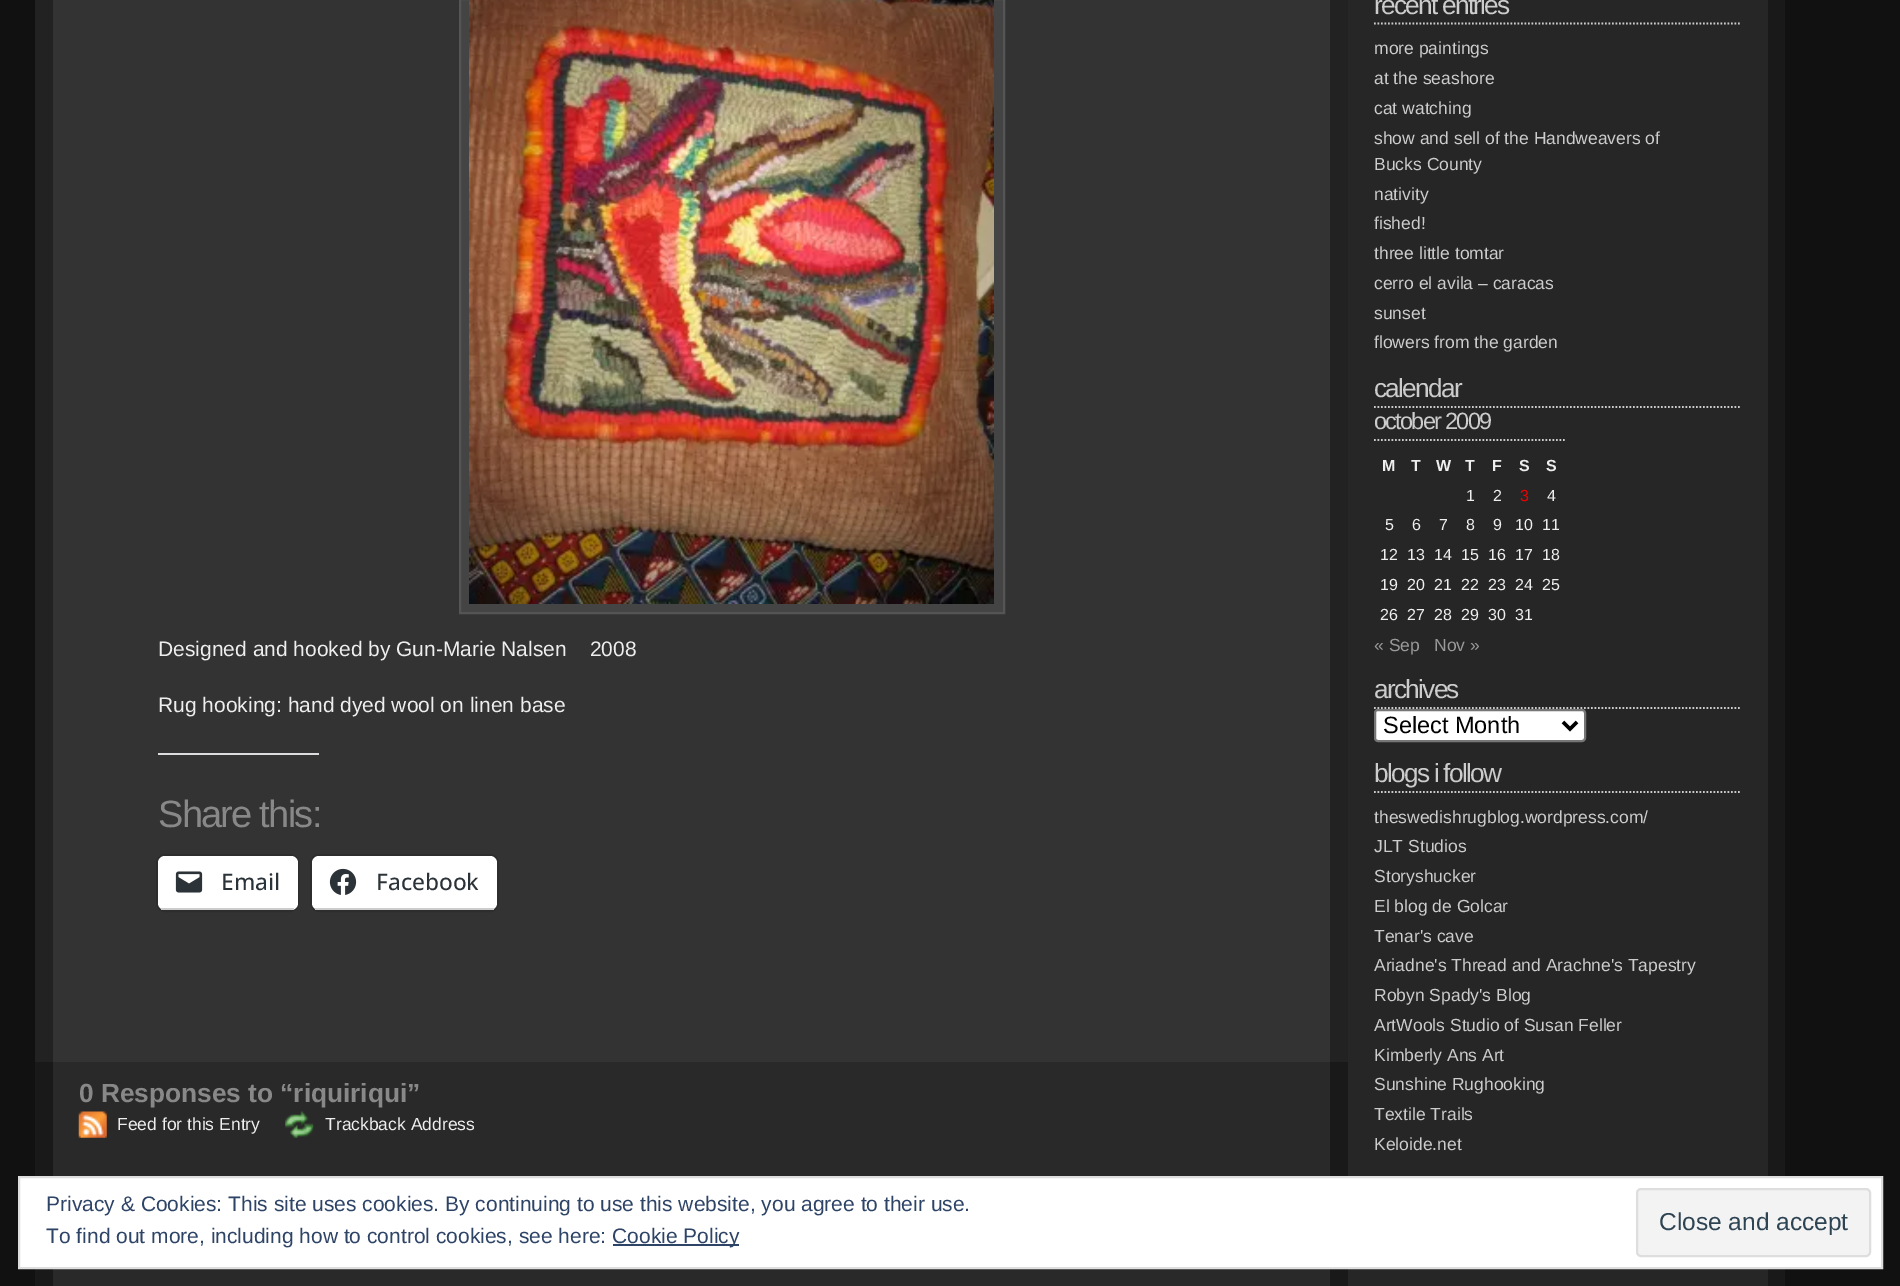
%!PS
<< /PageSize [1900 1286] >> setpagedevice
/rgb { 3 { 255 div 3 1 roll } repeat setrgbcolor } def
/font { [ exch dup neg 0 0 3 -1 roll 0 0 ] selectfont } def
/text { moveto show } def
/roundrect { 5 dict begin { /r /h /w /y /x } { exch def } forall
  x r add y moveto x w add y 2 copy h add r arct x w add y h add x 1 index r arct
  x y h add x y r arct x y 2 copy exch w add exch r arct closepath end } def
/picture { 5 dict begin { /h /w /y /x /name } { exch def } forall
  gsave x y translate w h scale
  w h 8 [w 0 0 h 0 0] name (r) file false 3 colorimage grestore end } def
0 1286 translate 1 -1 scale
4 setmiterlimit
17 17 17 rgb
0 0 1900 1286 rectfill
51 51 51 rgb
53 0 1277 1062 rectfill
34 34 34 rgb
1330 0 18 1062 rectfill
35 0 18 1062 rectfill
68 68 68 rgb
460 -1 moveto 544 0 rlineto 0 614 rlineto -544 0 rlineto closepath gsave fill grestore
85 85 85 rgb
2 setlinewidth
stroke
(img_01.rgb) 469 0 525 604 picture
220 220 222 rgb
158 753 161 2 rectfill
45 45 45 rgb
157 855 141 56 8 roundrect stroke
255 255 255 rgb
158 856 140 54 7 roundrect fill
204 204 204 rgb
161 908 133 2 rectfill
(img_02.rgb) 175 871 28 22 picture
45 45 45 rgb
311 855 187 56 8 roundrect stroke
255 255 255 rgb
312 856 185 54 7 roundrect fill
204 204 204 rgb
315 908 179 2 rectfill
(img_03.rgb) 329 868 28 27 picture
38 38 38 rgb
1348 0 420 1286 rectfill
25 25 25 rgb
1768 0 17 1286 rectfill
204 204 204 rgb
1.8 setlinewidth
[1.75 1.75] 0 setdash
1374 23.5 moveto 367 0 rlineto stroke
1374 407 moveto 367 0 rlineto stroke
1374 440 moveto 192 0 rlineto stroke
1374 708 moveto 367 0 rlineto stroke
255 255 255 rgb
1375 710 210 31 3 roundrect gsave fill grestore
118 118 118 rgb
2 setlinewidth
[] 0 setdash
stroke
0 0 0 rgb
3.5 setlinewidth
1563 722 moveto 7 7 rlineto 7 -7 rlineto stroke
204 204 204 rgb
1.8 setlinewidth
[1.75 1.75] 0 setdash
1374 792 moveto 367 0 rlineto stroke
41 41 41 rgb
53 1062 1277 224 rectfill
25 25 25 rgb
1330 1062 18 224 rectfill
35 1062 18 224 rectfill
(img_04.rgb) 78 1111 29 27 picture
(img_05.rgb) 285 1111 29 27 picture
255 255 255 rgb
19 1177 moveto 1863 0 rlineto 0 91 rlineto -1863 0 rlineto closepath gsave fill grestore
222 222 222 rgb
2 setlinewidth
[] 0 setdash
stroke
46 68 103 rgb
613 1244 126 2 rectfill
243 243 243 rgb
1637 1189 233 67 4 roundrect gsave fill grestore
222 222 222 rgb
stroke
/LiberationSans-Regular 21 font
238 238 238 rgb
(Designed and hooked by Gun-Marie Nalsen    2008) 158 656 text
(Rug hooking: hand dyed wool on linen base) 158 712 text
/LiberationSans-Regular 38 font
136 136 136 rgb
158 827 moveto -1.75 0 (Share this:) ashow
/OpenSans-Medium 22.75 font
44 51 56 rgb
(Email) 221 890 text
(Facebook) 376 890 text
/LiberationSans-Regular 26.25 font
204 204 204 rgb
1374 14 moveto -1.75 0 (recent entries) ashow
/LiberationSans-Regular 17.5 font
(more paintings) 1374 54 text
(at the seashore) 1374 84 text
(cat watching) 1374 114 text
(show and sell of the Handweavers of) 1374 144 text
(Bucks County) 1374 170 text
(nativity) 1374 200 text
(fished!) 1374 229 text
(three little tomtar) 1374 259 text
(cerro el avila – caracas) 1374 289 text
(sunset) 1374 319 text
(flowers from the garden) 1374 348 text
/LiberationSans-Regular 26.25 font
1374 397 moveto -1.75 0 (calendar) ashow
/LiberationSans-Regular 23.5 font
1374 429 moveto -1.75 0 (october 2009) ashow
/LiberationSans-Bold 16 font
238 238 238 rgb
(M) 1382 471 text
(T) 1411 471 text
(W) 1436 471 text
(T) 1465 471 text
(F) 1492 471 text
(S) 1519 471 text
(S) 1546 471 text
/LiberationSans-Regular 16 font
(1) 1466 501 text
(2) 1493 501 text
238 0 0 rgb
(3) 1520 501 text
238 238 238 rgb
(4) 1547 501 text
(5) 1385 530 text
(6) 1412 530 text
(7) 1439 530 text
(8) 1466 530 text
(9) 1493 530 text
(10) 1515 530 text
(11) 1542 530 text
(12) 1380 560 text
(13) 1407 560 text
(14) 1434 560 text
(15) 1461 560 text
(16) 1488 560 text
(17) 1515 560 text
(18) 1542 560 text
(19) 1380 590 text
(20) 1407 590 text
(21) 1434 590 text
(22) 1461 590 text
(23) 1488 590 text
(24) 1515 590 text
(25) 1542 590 text
(26) 1380 620 text
(27) 1407 620 text
(28) 1434 620 text
(29) 1461 620 text
(30) 1488 620 text
(31) 1515 620 text
/LiberationSans-Regular 17.5 font
153 153 153 rgb
(« Sep) 1374 651 text
(Nov ») 1434 651 text
/LiberationSans-Regular 26.25 font
204 204 204 rgb
1374 698 moveto -1.75 0 (archives) ashow
/LiberationSans-Regular 23.5 font
0 0 0 rgb
(Select Month) 1383 733 text
/LiberationSans-Regular 26.25 font
204 204 204 rgb
1374 782 moveto -1.75 0 (blogs i follow) ashow
/LiberationSans-Regular 17.5 font
(theswedishrugblog.wordpress.com/) 1374 823 text
(JLT Studios) 1374 852 text
(Storyshucker) 1374 882 text
(El blog de Golcar) 1374 912 text
(Tenar's cave) 1374 942 text
(Ariadne's Thread and Arachne's Tapestry) 1374 971 text
(Robyn Spady's Blog) 1374 1001 text
(ArtWools Studio of Susan Feller) 1374 1031 text
(Kimberly Ans Art) 1374 1061 text
(Sunshine Rughooking) 1374 1090 text
(Textile Trails) 1374 1120 text
(Keloide.net) 1374 1150 text
/LiberationSans-Bold 26.25 font
136 136 136 rgb
(0 Responses to “riquiriqui”) 79 1102 text
/LiberationSans-Regular 17.5 font
238 238 238 rgb
(Feed for this Entry) 117 1130 text
(Trackback Address) 325 1130 text
/LiberationSans-Regular 21 font
46 68 103 rgb
(Privacy & Cookies: This site uses cookies. By continuing to use this website, you agree to their use.) 46 1211 text
(To find out more, including how to control cookies, see here:) 46 1243 text
(Cookie Policy) 612 1243 text
/LiberationSans-Regular 24.5 font
46 68 83 rgb
(Close and accept) 1659 1230 text
showpage
